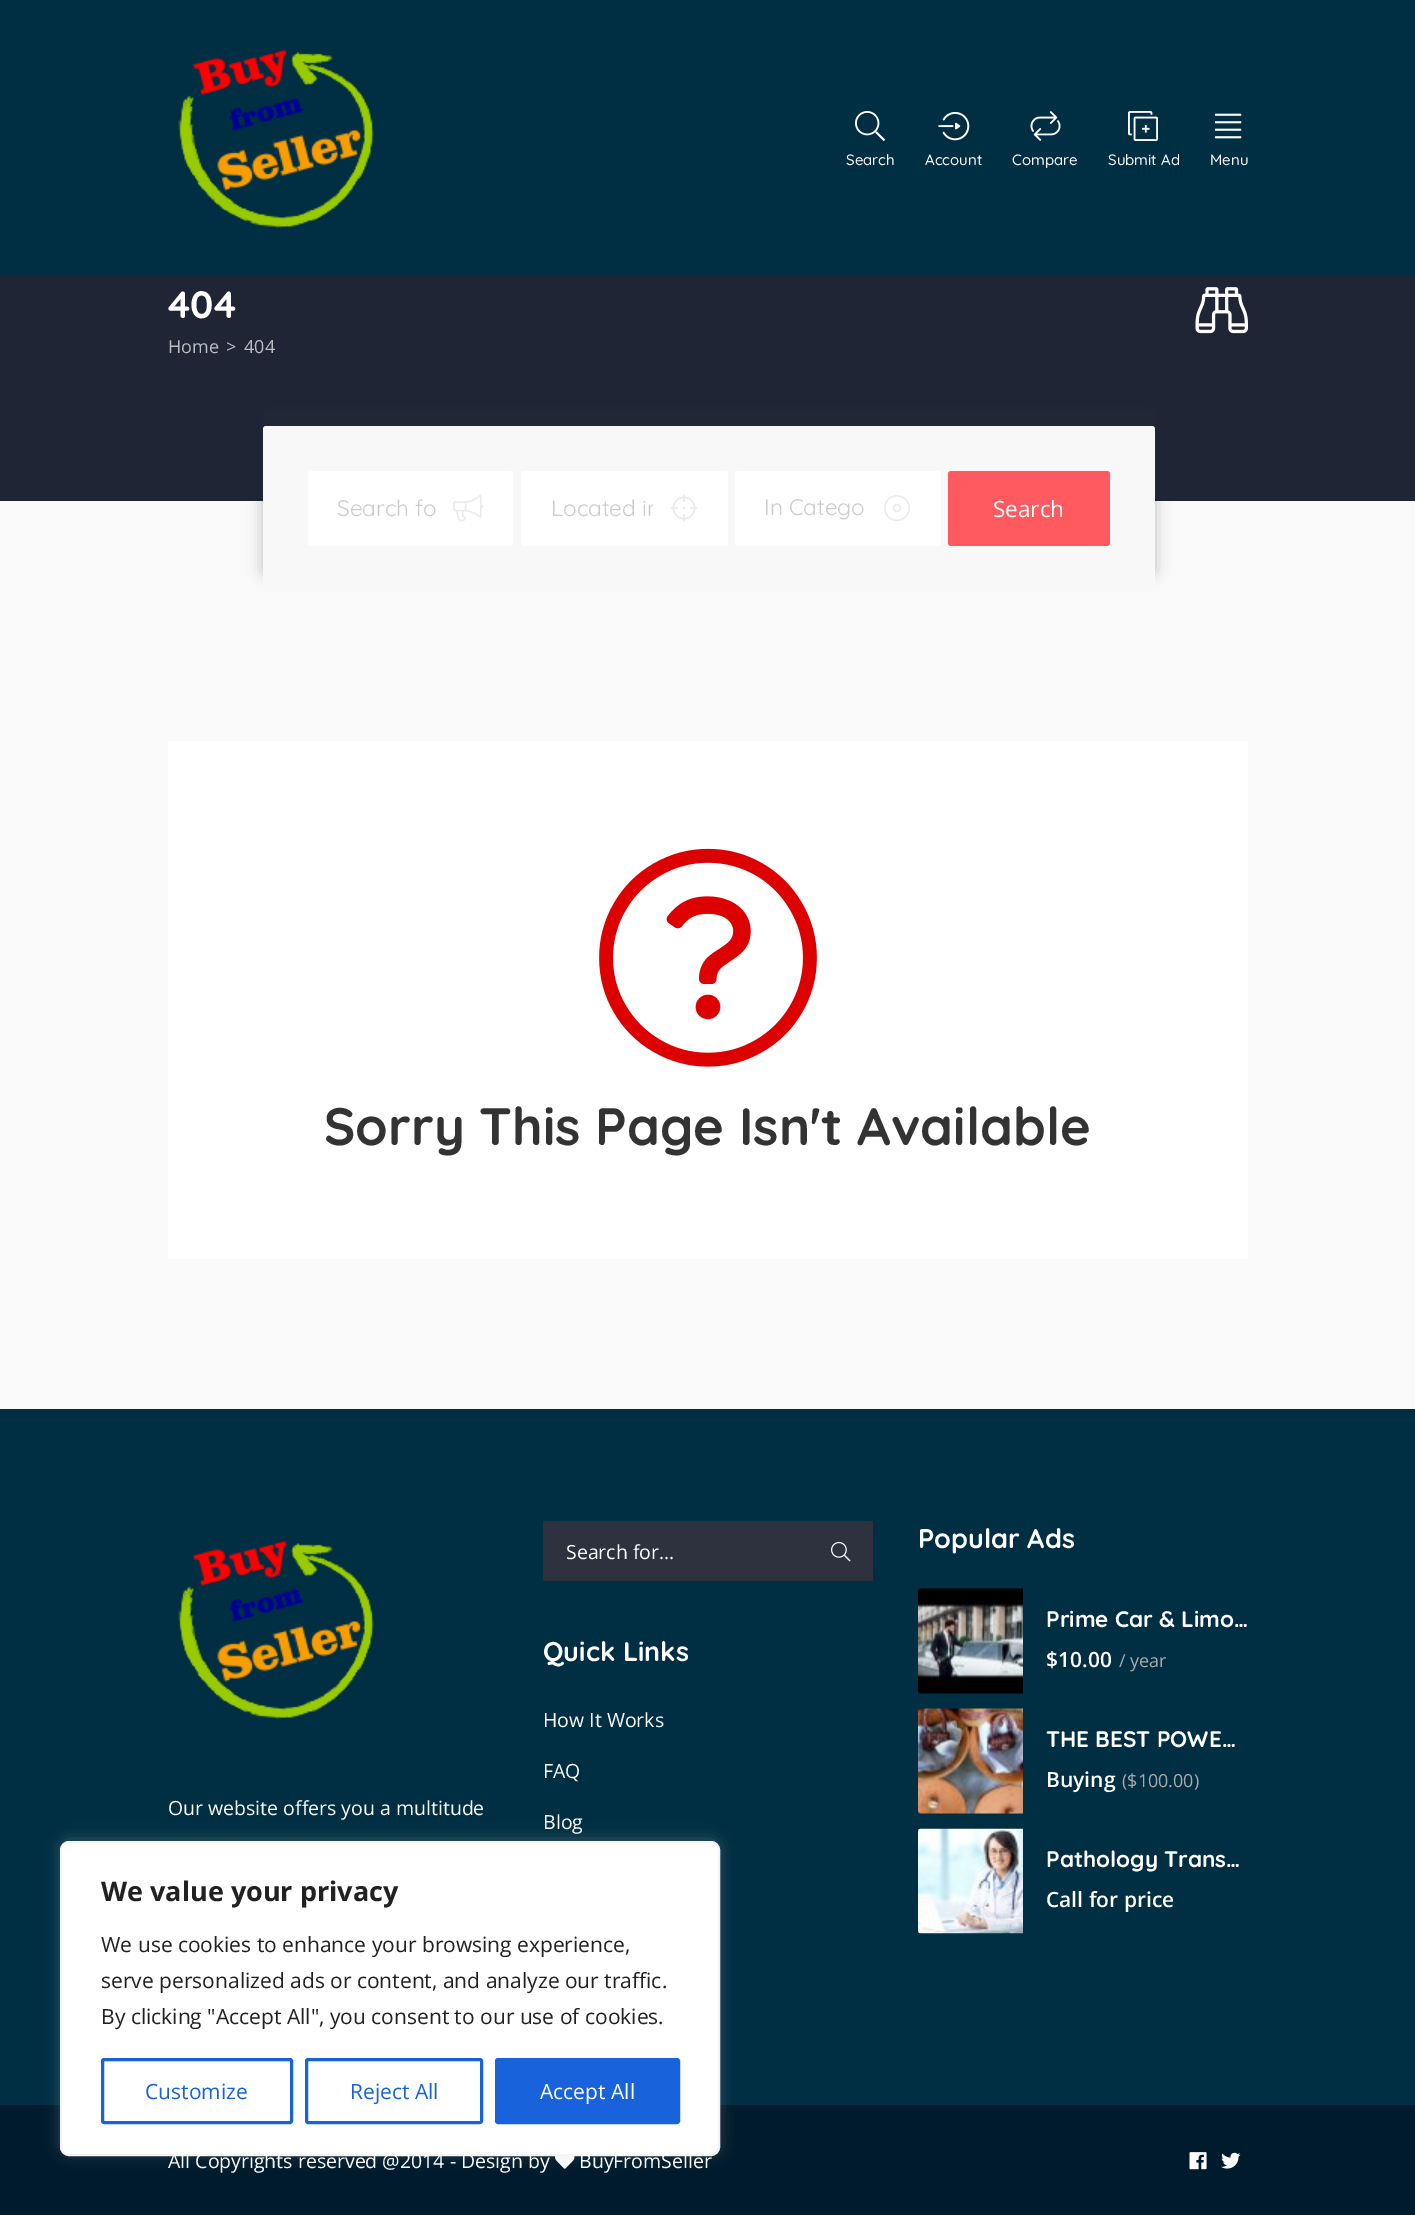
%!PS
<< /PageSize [1415 2215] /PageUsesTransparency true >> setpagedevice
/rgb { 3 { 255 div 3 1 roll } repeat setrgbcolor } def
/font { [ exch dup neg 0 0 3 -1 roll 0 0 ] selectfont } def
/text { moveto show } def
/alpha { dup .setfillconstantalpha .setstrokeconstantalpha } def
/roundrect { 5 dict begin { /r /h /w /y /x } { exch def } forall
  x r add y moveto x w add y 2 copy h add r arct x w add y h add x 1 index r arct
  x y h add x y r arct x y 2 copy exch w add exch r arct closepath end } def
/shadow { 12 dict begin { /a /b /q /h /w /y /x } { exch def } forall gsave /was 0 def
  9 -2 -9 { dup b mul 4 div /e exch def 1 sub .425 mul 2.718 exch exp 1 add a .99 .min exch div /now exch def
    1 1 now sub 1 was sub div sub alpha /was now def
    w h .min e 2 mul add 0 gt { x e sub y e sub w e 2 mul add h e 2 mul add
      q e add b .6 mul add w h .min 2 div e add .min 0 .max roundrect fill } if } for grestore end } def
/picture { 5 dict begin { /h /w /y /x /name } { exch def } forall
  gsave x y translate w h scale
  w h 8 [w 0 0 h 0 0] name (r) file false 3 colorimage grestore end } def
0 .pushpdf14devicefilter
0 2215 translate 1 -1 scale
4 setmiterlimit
249 249 249 rgb
0 0 1415 2215 rectfill
31 37 53 rgb
0 276 1415 225 rectfill
(img_07.rgb) 1195 287 53 47 picture
23 23 23 rgb
0 6 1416 276 0 3 0.06 shadow
0 46 66 rgb
0 0 1415 276 rectfill
(img_01.rgb) 178 49 196 180 picture
(img_02.rgb) 855 111 30 30 picture
(img_03.rgb) 938 111 32 30 picture
(img_04.rgb) 1030 111 31 30 picture
(img_05.rgb) 1128 111 30 30 picture
(img_06.rgb) 1215 113 27 26 picture
42 47 54 rgb
263 408 892 165 3 7.5 0.3 shadow
248 248 248 rgb
266 426 moveto 886 0 rlineto 1.5 0 3 1.5 3 3 rcurveto 0 162 rlineto -892 0 rlineto 0 -162 rlineto 0 -1.5 1.5 -3 3 -3 rcurveto closepath fill
255 255 255 rgb
308 471 205 75 3 roundrect fill
(img_08.rgb) 453 494 31 28 picture
521 471 207 75 3 roundrect fill
(img_09.rgb) 670 494 28 28 picture
735 471 206 75 3 roundrect fill
(img_10.rgb) 884 495 26 26 picture
255 90 95 rgb
948 471 162 75 3 roundrect fill
255 255 255 rgb
168 741 1080 518 3 roundrect fill
(img_11.rgb) 599 848 218 219 picture
0 46 66 rgb
0 1409 1415 696 rectfill
(img_01.rgb) 178 1540 196 180 picture
45 50 62 rgb
543 1521 330 60 rectfill
(img_12.rgb) 831 1541 20 21 picture
(img_13.rgb) 918 1588 105 106 picture
(img_14.rgb) 918 1708 105 106 picture
(img_15.rgb) 918 1828 105 106 picture
0 27 45 rgb
0 2105 1415 110 rectfill
(img_16.rgb) 555 2156 20 13 picture
(img_17.rgb) 1189 2152 18 18 picture
(img_18.rgb) 1221 2152 20 17 picture
172 171 171 rgb
60 1839 660 315 9 7.5 0.3 shadow
255 255 255 rgb
61 1842 658 313 8 roundrect gsave fill grestore
244 244 244 rgb
2 setlinewidth
stroke
24 99 220 rgb
3 setlinewidth
102.5 2059.5 189 63 1.5 roundrect stroke
306.5 2059.5 175 63 1.5 roundrect stroke
496.5 2059.5 182 63 1.5 roundrect gsave fill grestore
stroke
/Quicksand-Medium 15 font
255 255 255 rgb
(Search) 846 165 text
(Account) 925 165 text
(Compare) 1012 165 text
(Submit Ad) 1108 165 text
(Menu) 1210 165 text
/Quicksand-Bold 38 font
(404) 168 318 text
/OpenSans-Regular 18 font
188 190 194 rgb
(Home) 168 353 text
(>) 226 353 text
(404) 244 353 text
/Quicksand-Regular 22.5 font
204 204 204 rgb
(Search fo) 337 516 text
gsave
551 494 102 28 rectclip
(Located in) 551 516 text
grestore
(In Catego) 764 515 text
/OpenSans-Regular 22.5 font
255 255 255 rgb
(Search) 993 517 text
/Quicksand-Bold 52.5 font
51 51 51 rgb
(Sorry This Page Isn't Available) 324 1145 text
/OpenSans-Regular 19.5 font
255 255 255 rgb
(Our website offers you a multitude) 168 1815 text
(Search for...) 566 1559 text
/Quicksand-Bold 27 font
(Quick Links) 543 1661 text
/OpenSans-Regular 19.5 font
(How It Works) 543 1727 text
(FAQ) 543 1778 text
(Blog) 543 1829 text
/Quicksand-Bold 27 font
(Popular Ads) 918 1548 text
/Quicksand-Bold 22.5 font
(Prime Car & Limo…) 1046 1627 text
/OpenSans-SemiBold 21 font
($10.00) 1046 1667 text
/OpenSans-Regular 18 font
170 170 170 rgb
(/ year) 1119 1667 text
/Quicksand-Bold 22.5 font
255 255 255 rgb
(THE BEST POWE…) 1046 1747 text
/OpenSans-SemiBold 21 font
(Buying) 1046 1787 text
/OpenSans-Regular 18 font
170 170 170 rgb
(\($100.00\)) 1122 1787 text
/Quicksand-Bold 22.5 font
255 255 255 rgb
(Pathology Trans…) 1046 1867 text
/OpenSans-SemiBold 21 font
(Call for price) 1046 1907 text
/OpenSans-Regular 19.5 font
(All Copyrights reserved @2014 - Design by) 168 2168 text
(BuyFromSeller) 579 2168 text
/OpenSans-Bold 27 font
33 33 33 rgb
(We value your privacy) 101 1901 text
/OpenSans-Regular 21 font
(We use cookies to enhance your browsing experience,) 101 1952 text
(serve personalized ads or content, and analyze our traffic.) 101 1988 text
(By clicking "Accept All", you consent to our use of cookies.) 101 2024 text
24 99 220 rgb
(Customize) 145 2099 text
(Reject All) 350 2099 text
255 255 255 rgb
(Accept All) 540 2099 text
.poppdf14devicefilter showpage
